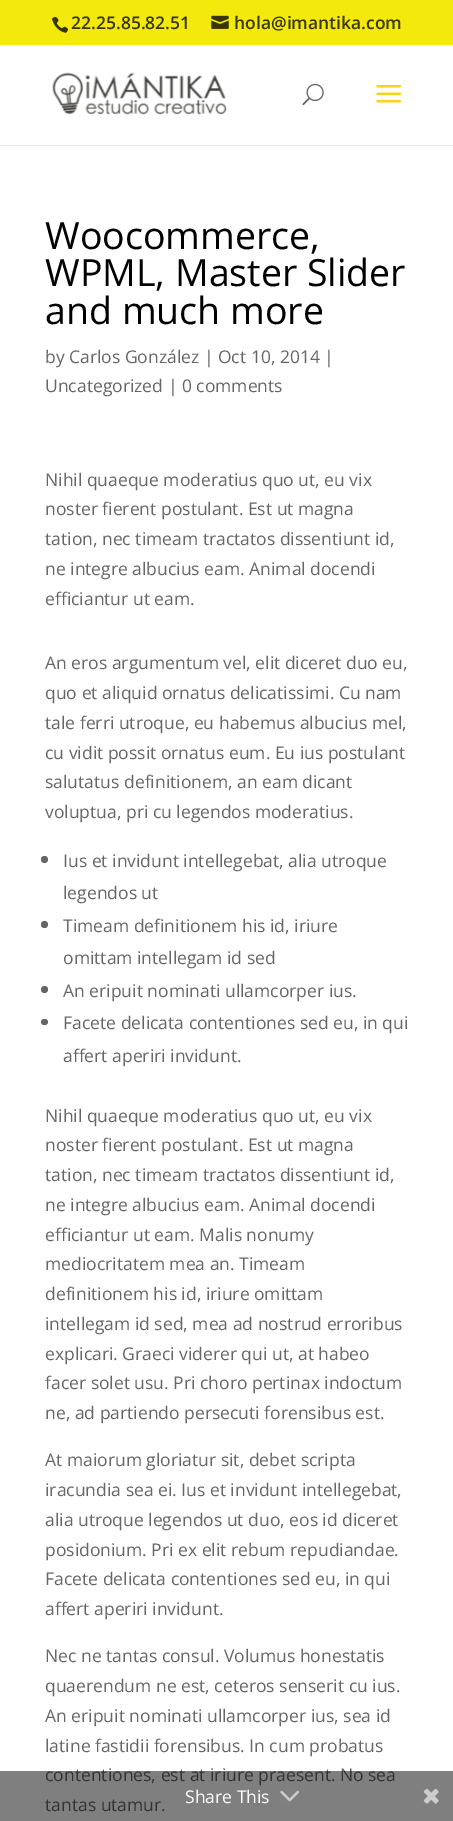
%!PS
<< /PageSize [453 1821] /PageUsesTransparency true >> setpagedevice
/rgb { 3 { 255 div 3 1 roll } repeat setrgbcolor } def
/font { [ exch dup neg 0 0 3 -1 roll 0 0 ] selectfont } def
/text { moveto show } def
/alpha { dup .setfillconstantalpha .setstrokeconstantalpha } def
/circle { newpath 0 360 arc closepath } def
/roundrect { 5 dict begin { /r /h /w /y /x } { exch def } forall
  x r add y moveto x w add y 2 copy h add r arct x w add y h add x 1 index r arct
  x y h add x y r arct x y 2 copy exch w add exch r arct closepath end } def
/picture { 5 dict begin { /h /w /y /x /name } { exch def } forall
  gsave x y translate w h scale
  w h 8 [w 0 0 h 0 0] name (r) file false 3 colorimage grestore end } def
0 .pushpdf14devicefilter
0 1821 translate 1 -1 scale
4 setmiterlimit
255 255 255 rgb
0 0 453 1821 rectfill
244 233 12 rgb
0 0 453 45 rectfill
(img_01.rgb) 52 16 16 17 picture
(img_02.rgb) 211 15 18 14 picture
230 230 230 rgb
0 145 moveto 0 1 rlineto 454 0 rlineto 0 -100 rlineto 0 99 rlineto closepath fill
(img_03.rgb) 52 72 175 43 picture
(img_04.rgb) 302 83 22 23 picture
(img_05.rgb) 376 85 26 18 picture
102 102 102 rgb
44.5 859.5 3.5 circle fill
44.5 924.5 3.5 circle fill
44.5 989.5 3.5 circle fill
41 1019 7 6 3 roundrect fill
/OpenSans-SemiBold 17.5 font
56 54 3 rgb
(22.25.85.82.51) 71 29 text
(hola@imantika.com) 234 29 text
/OpenSans-Regular 37.5 font
0 0 0 rgb
(Woocommerce,) 45 249 text
(WPML, Master Slider) 45 286 text
(and much more) 45 324 text
/OpenSans-Regular 17.5 font
102 102 102 rgb
(by Carlos González | Oct 10, 2014 |) 45 363 text
(Uncategorized | 0 comments) 45 392 text
(Nihil quaeque moderatius quo ut, eu vix) 45 486 text
(noster fierent postulant. Est ut magna) 45 515 text
(tation, nec timeam tractatos dissentiunt id,) 45 545 text
(ne integre albucius eam. Animal docendi) 45 575 text
(efficiantur ut eam.) 45 605 text
(An eros argumentum vel, elit diceret duo eu,) 45 669 text
(quo et aliquid ornatus delicatissimi. Cu nam) 45 699 text
(tale ferri utroque, eu habemus albucius mel,) 45 729 text
(cu vidit possit ornatus eum. Eu ius postulant) 45 759 text
(salutatus definitionem, an eam dicant) 45 788 text
(voluptua, pri cu legendos moderatius.) 45 818 text
(Ius et invidunt intellegebat, alia utroque) 63 867 text
(legendos ut) 63 899 text
(Timeam definitionem his id, iriure) 63 932 text
(omittam intellegam id sed) 63 964 text
(An eripuit nominati ullamcorper ius.) 63 997 text
(Facete delicata contentiones sed eu, in qui) 63 1029 text
(affert aperiri invidunt.) 63 1062 text
(Nihil quaeque moderatius quo ut, eu vix) 45 1122 text
(noster fierent postulant. Est ut magna) 45 1151 text
(tation, nec timeam tractatos dissentiunt id,) 45 1181 text
(ne integre albucius eam. Animal docendi) 45 1211 text
(efficiantur ut eam. Malis nonumy) 45 1241 text
(mediocritatem mea an. Timeam) 45 1270 text
(definitionem his id, iriure omittam) 45 1300 text
(intellegam id sed, mea ad nostrud erroribus) 45 1330 text
(explicari. Graeci viderer qui ut, at habeo) 45 1360 text
(facer solet usu. Pri choro pertinax indoctum) 45 1389 text
(ne, ad partiendo persecuti forensibus est.) 45 1419 text
(At maiorum gloriatur sit, debet scripta) 45 1466 text
(iracundia sea ei. Ius et invidunt intellegebat,) 45 1496 text
(alia utroque legendos ut duo, eos id diceret) 45 1526 text
(posidonium. Pri ex elit rebum repudiandae.) 45 1556 text
(Facete delicata contentiones sed eu, in qui) 45 1585 text
(affert aperiri invidunt.) 45 1615 text
(Nec ne tantas consul. Volumus honestatis) 45 1662 text
(quaerendum ne est, ceteros senserit cu ius.) 45 1692 text
(An eripuit nominati ullamcorper ius, sea id) 45 1722 text
(latine fastidii forensibus. In cum probatus) 45 1752 text
(contentiones, est at iriure praesent. No sea) 45 1781 text
(tantas utamur.) 45 1811 text
0.5 alpha
0 0 0 rgb
0 1771 453 50 rectfill
1 alpha
255 255 255 rgb
(Share This) 185 1803 text
(img_06.rgb) 280 1790 19 12 picture
(img_07.rgb) 423 1788 16 16 picture
.poppdf14devicefilter showpage
